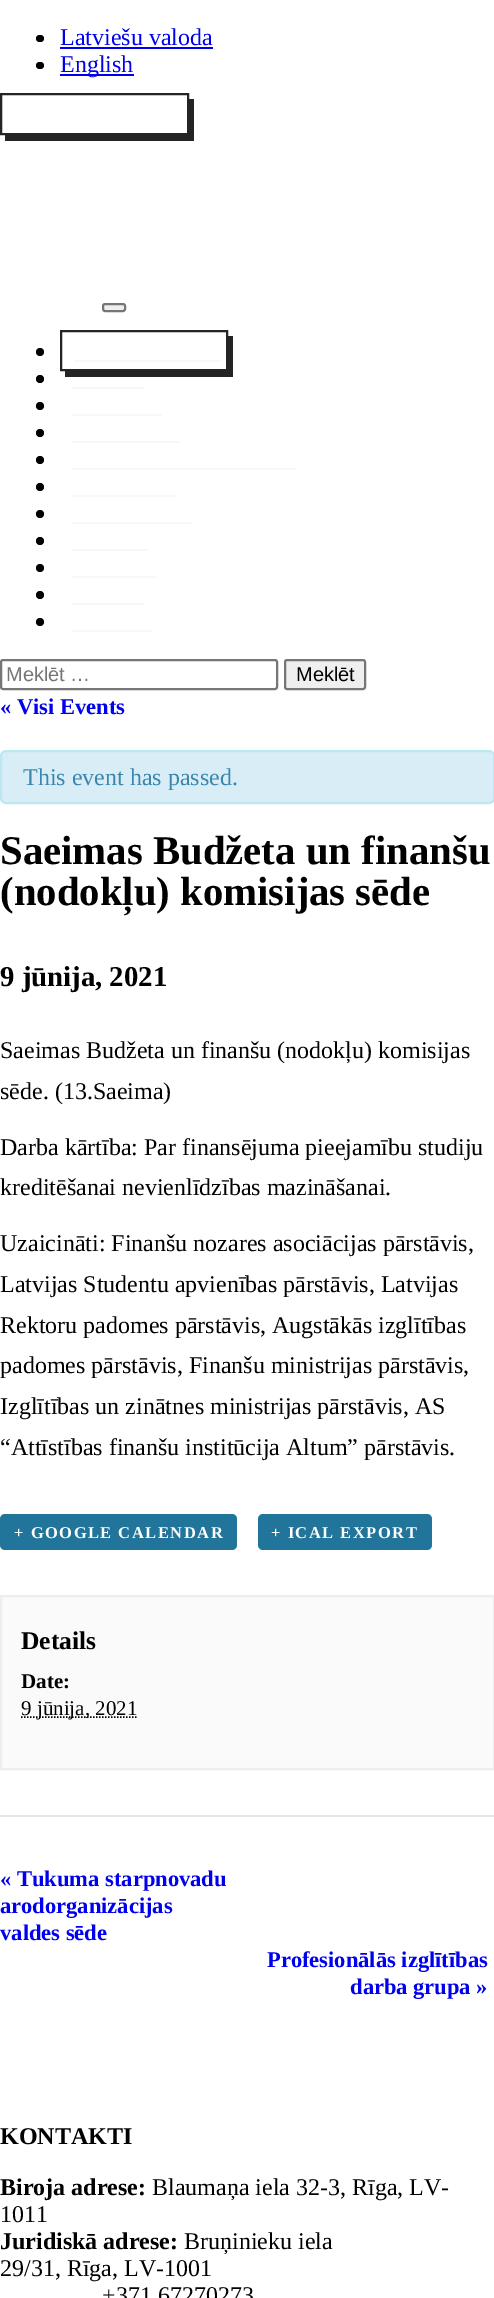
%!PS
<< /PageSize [494 2298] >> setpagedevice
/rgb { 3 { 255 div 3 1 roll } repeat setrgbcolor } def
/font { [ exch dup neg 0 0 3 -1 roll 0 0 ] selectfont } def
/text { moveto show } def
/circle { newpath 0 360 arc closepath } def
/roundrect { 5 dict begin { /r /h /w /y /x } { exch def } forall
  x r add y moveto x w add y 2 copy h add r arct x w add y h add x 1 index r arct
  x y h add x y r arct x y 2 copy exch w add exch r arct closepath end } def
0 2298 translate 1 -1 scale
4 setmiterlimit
255 255 255 rgb
0 0 494 2298 rectfill
0 0 0 rgb
36 35 8 7 3.5 roundrect fill
0 0 238 rgb
60 47 153 2 rectfill
0 0 0 rgb
36 62 8 7 3.5 roundrect fill
0 0 238 rgb
60 74 74 2 rectfill
36 36 36 rgb
5 135 moveto 0 6 rlineto 189 0 rlineto 0 -42 rlineto -5 0 rlineto 0 36 rlineto closepath fill
2 setlinewidth
1 94 187 40 rectstroke
239 239 239 rgb
103 304 22 7 2 roundrect gsave fill grestore
118 118 118 rgb
stroke
36 36 36 rgb
65 370 moveto 0 7 rlineto 168 0 rlineto 0 -41 rlineto -5 0 rlineto 0 34 rlineto closepath fill
61 331 166 39 rectstroke
0 0 0 rgb
40 352 4 circle fill
248 248 248 rgb
74 360 147 2 rectfill
0 0 0 rgb
40 379 4 circle fill
248 248 248 rgb
72 387 72 2 rectfill
0 0 0 rgb
40 406 4 circle fill
248 248 248 rgb
72 414 90 2 rectfill
0 0 0 rgb
40 433 4 circle fill
248 248 248 rgb
72 441 108 2 rectfill
0 0 0 rgb
40 460 4 circle fill
248 248 248 rgb
72 468 225 2 rectfill
0 0 0 rgb
40 487 4 circle fill
248 248 248 rgb
72 495 105 2 rectfill
0 0 0 rgb
40 514 4 circle fill
248 248 248 rgb
72 522 120 2 rectfill
0 0 0 rgb
40 541 4 circle fill
248 248 248 rgb
72 549 77 2 rectfill
0 0 0 rgb
40 568 4 circle fill
248 248 248 rgb
72 576 84 2 rectfill
0 0 0 rgb
40 595 4 circle fill
248 248 248 rgb
72 603 72 2 rectfill
0 0 0 rgb
40 622 4 circle fill
248 248 248 rgb
72 630 80 2 rectfill
118 118 118 rgb
1 660 276 29 2 roundrect stroke
239 239 239 rgb
285 660 80 29 2 roundrect gsave fill grestore
118 118 118 rgb
stroke
217 237 247 rgb
1 751 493 52 5 roundrect gsave fill grestore
188 232 241 rgb
stroke
33 117 155 rgb
0 1514 237 36 5 roundrect fill
258 1514 174 36 5 roundrect fill
250 250 250 rgb
1 1596 moveto 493 0 rlineto 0 173 rlineto -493 0 rlineto closepath gsave fill grestore
238 238 238 rgb
stroke
0 0 0 rgb
1.5 setlinewidth
[1.5 1.5] 0 setdash
21 1717 moveto 116 0 rlineto stroke
229 229 229 rgb
0 1815 494 2 rectfill
/LiberationSerif-Regular 24 font
0 0 238 rgb
(Latviešu valoda) 60 45 text
(English) 60 72 text
/LiberationSans-Regular 20 font
117 117 117 rgb
(Meklēt …) 6 681 text
0 0 0 rgb
(Meklēt) 296 681 text
/LiberationSerif-Bold 22.5 font
0 0 238 rgb
(« Visi Events) 0 714 text
/LiberationSerif-Regular 24 font
58 135 173 rgb
(This event has passed.) 23 785 text
/LiberationSerif-Bold 40.75 font
0 0 0 rgb
(Saeimas Budžeta un finanšu) 0 864 text
(\(nodokļu\) komisijas sēde) 0 905 text
/LiberationSerif-Bold 28.75 font
(9 jūnija, 2021) 0 986 text
/LiberationSerif-Regular 24 font
(Saeimas Budžeta un finanšu \(nodokļu\) komisijas) 0 1058 text
(sēde. \(13.Saeima\)) 0 1099 text
(Darba kārtība: Par finansējuma pieejamību studiju) 0 1155 text
(kreditēšanai nevienlīdzības mazināšanai.) 0 1195 text
(Uzaicināti: Finanšu nozares asociācijas pārstāvis,) 0 1251 text
(Latvijas Studentu apvienības pārstāvis, Latvijas) 0 1292 text
(Rektoru padomes pārstāvis, Augstākās izglītības) 0 1333 text
(padomes pārstāvis, Finanšu ministrijas pārstāvis,) 0 1373 text
(Izglītības un zinātnes ministrijas pārstāvis, AS) 0 1414 text
(“Attīstības finanšu institūcija Altum” pārstāvis.) 0 1455 text
/LiberationSerif-Bold 16.5 font
255 255 255 rgb
14 1538 moveto 1.5 0 (+ GOOGLE CALENDAR) ashow
271 1538 moveto 1.5 0 (+ ICAL EXPORT) ashow
/LiberationSerif-Bold 25.5 font
0 0 0 rgb
(Details) 21 1649 text
/LiberationSerif-Bold 21 font
(Date:) 21 1688 text
/LiberationSerif-Regular 21 font
(9 jūnija, 2021) 21 1715 text
/LiberationSerif-Bold 22.5 font
0 0 238 rgb
(« Tukuma starpnovadu) 0 1886 text
(arodorganizācijas) 0 1913 text
(valdes sēde) 0 1940 text
(Profesionālās izglītības) 267 1967 text
(darba grupa ») 350 1994 text
/LiberationSerif-Bold 24 font
0 0 0 rgb
(KONTAKTI) 0 2144 text
(Biroja adrese:) 0 2195 text
/LiberationSerif-Regular 24 font
(Blaumaņa iela 32-3, Rīga, LV-) 152 2195 text
(1011) 0 2222 text
/LiberationSerif-Bold 24 font
(Juridiskā adrese:) 0 2249 text
/LiberationSerif-Regular 24 font
(Bruņinieku iela) 184 2249 text
(29/31, Rīga, LV-1001) 0 2276 text
(+371 67270273) 102 2303 text
showpage
